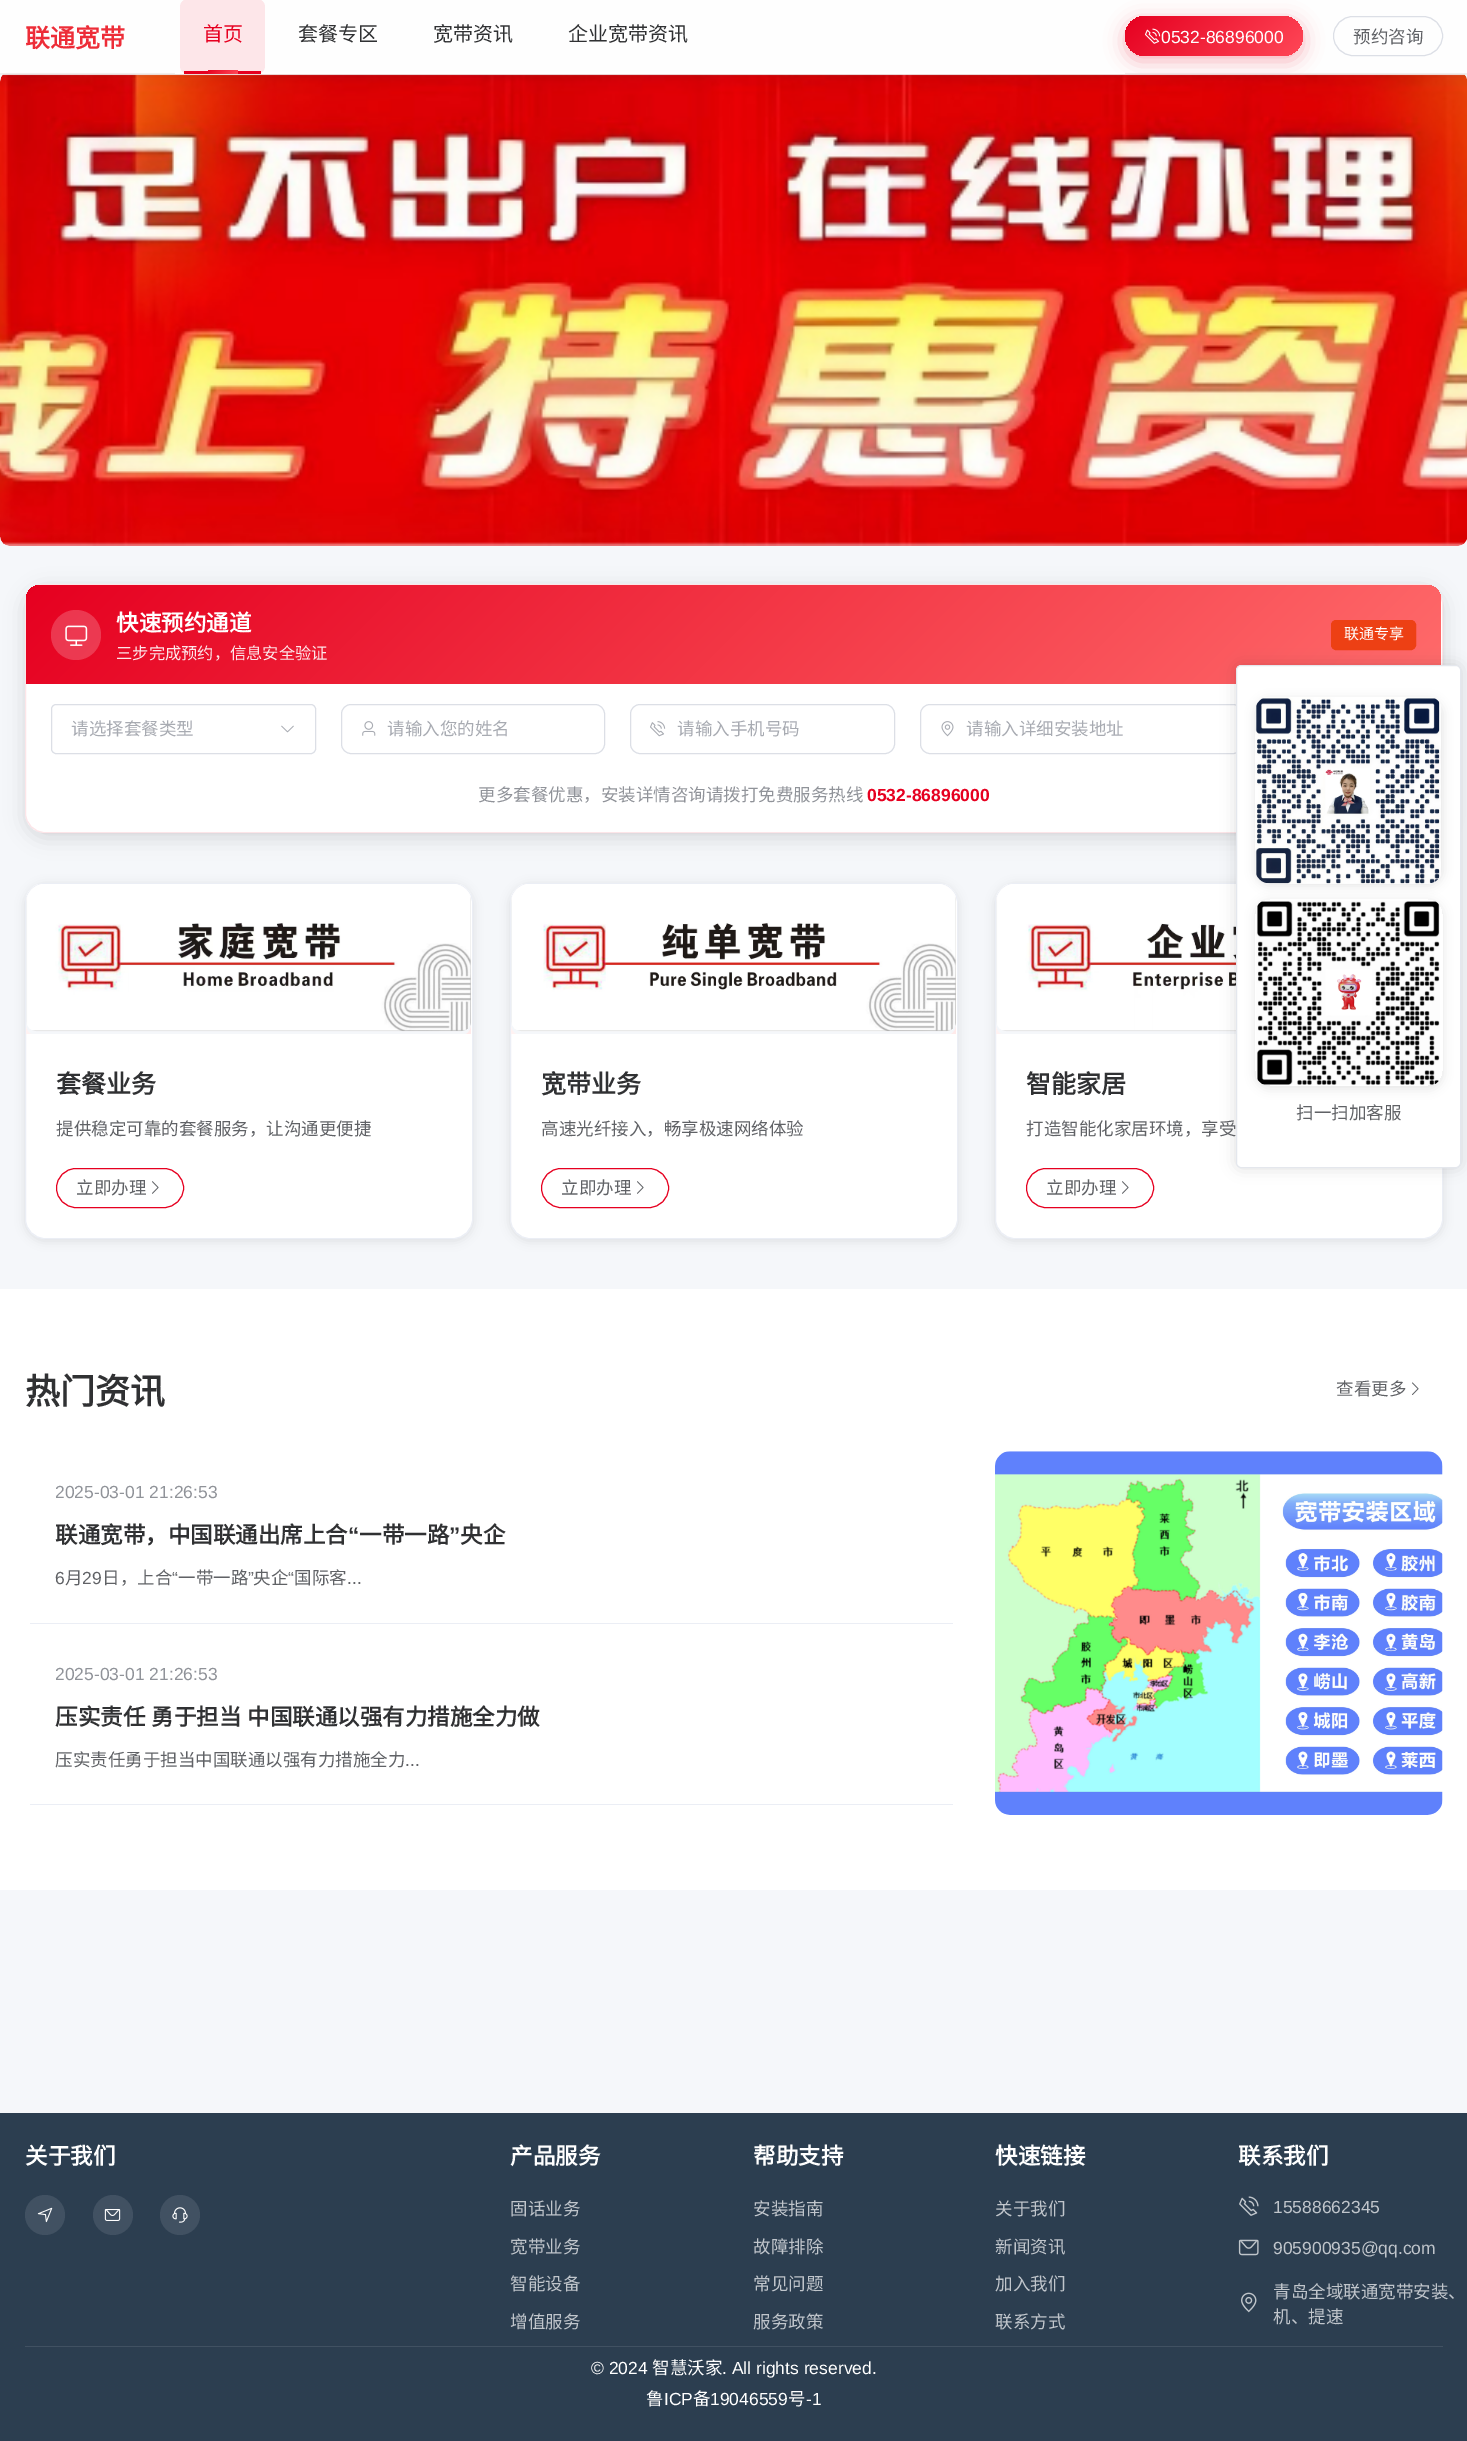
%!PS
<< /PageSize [1467 2441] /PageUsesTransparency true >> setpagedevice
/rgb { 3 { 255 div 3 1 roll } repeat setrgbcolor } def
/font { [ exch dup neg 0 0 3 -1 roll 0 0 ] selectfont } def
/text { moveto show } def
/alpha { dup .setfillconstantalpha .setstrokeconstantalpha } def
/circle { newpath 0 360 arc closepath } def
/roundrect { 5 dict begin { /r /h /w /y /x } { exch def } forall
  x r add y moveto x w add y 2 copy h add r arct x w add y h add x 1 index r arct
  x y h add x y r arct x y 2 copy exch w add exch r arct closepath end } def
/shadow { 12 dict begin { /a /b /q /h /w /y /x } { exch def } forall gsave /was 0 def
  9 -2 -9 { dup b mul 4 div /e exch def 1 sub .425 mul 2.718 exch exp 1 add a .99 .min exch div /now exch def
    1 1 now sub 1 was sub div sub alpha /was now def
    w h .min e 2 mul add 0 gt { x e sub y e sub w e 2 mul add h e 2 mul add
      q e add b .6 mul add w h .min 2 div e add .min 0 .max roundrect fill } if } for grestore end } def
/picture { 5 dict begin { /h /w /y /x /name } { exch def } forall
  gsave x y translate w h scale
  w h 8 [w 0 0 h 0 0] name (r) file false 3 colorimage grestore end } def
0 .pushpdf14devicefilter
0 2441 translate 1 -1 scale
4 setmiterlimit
245 247 250 rgb
0 0 1467 2441 rectfill
(img_02.rgb) 0 71 1467 475 picture
0.85 alpha
255 255 255 rgb
0 0 1467 75 rectfill
0.06 alpha
0 0 0 rgb
0 74 1467 1 rectfill
0.85 alpha
255 255 255 rgb
4 71 1460 3 rectfill
0.06 alpha
0 0 0 rgb
0 73 1467 1 rectfill
1 alpha
255 255 255 rgb
175 72 950 2 rectfill
253 230 233 rgb
180 -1 85 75 8 roundrect fill
230 0 32 rgb
184 71 77 3 rectfill
gsave 208 70 30 4 2 roundrect clip newpath
<< /ShadingType 2 /ColorSpace /DeviceRGB /Coords [214 63 231 80] /Extend [true true] /Function << /FunctionType 2 /Domain [0 1] /C0 [0.902 0 0.125] /C1 [1 0.278 0.341] /N 1 >> >> shfill grestore
1125 21 178 40 20 10 0.3 shadow
gsave 1125 16 178 40 20 roundrect clip newpath
<< /ShadingType 2 /ColorSpace /DeviceRGB /Coords [1159 -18 1268 91] /Extend [true true] /Function << /FunctionType 2 /Domain [0 1] /C0 [0.902 0 0.125] /C1 [1 0.278 0.341] /N 1 >> >> shfill grestore
(img_01.rgb) 1145 28 16 16 picture
220 223 230 rgb
1333.5 16.5 109 39 19.5 roundrect stroke
0 0 0 rgb
25 589 1418 249 20 10 0.12 shadow
255 255 255 rgb
25 584 1418 249 20 roundrect fill
0.1 alpha
230 0 32 rgb
25.5 584.5 1417 248 19.5 roundrect stroke
1 alpha
gsave 41 585 moveto 1385 0 rlineto 8.5 0 15 6.5 15 15 rcurveto 0 84 rlineto -1415 0 rlineto 0 -84 rlineto 0 -8.5 6.5 -15 15 -15 rcurveto closepath clip newpath
<< /ShadingType 2 /ColorSpace /DeviceRGB /Coords [355 256 1112 1013] /Extend [true true] /Function << /FunctionType 2 /Domain [0 1] /C0 [0.902 0 0.125] /C1 [1 0.42 0.42] /N 1 >> >> shfill grestore
0.2 alpha
255 255 255 rgb
76 635 25 circle fill
1 alpha
(img_03.rgb) 65 625 23 21 picture
237 64 20 rgb
1331.5 620.5 84 29 4.5 roundrect gsave fill grestore
stroke
220 223 230 rgb
51.5 704.5 264 49 4.5 roundrect stroke
(img_04.rgb) 281 725 13 8 picture
341.5 704.5 263 49 9.5 roundrect stroke
(img_05.rgb) 362 721 14 15 picture
630.5 704.5 264 49 9.5 roundrect stroke
(img_06.rgb) 650 721 16 16 picture
920.5 704.5 322 49 9.5 roundrect stroke
(img_07.rgb) 941 721 13 16 picture
0 0 0 rgb
25 885 448 356 20 5 0.1 shadow
255 255 255 rgb
25.5 883.5 447 355 19.5 roundrect gsave fill grestore
235 238 245 rgb
stroke
gsave 45 884 moveto 407 0 rlineto 10.5 0 19 8.5 19 19 rcurveto 0 131 rlineto -445 0 rlineto 0 -131 rlineto 0 -10.5 8.5 -19 19 -19 rcurveto closepath clip newpath
<< /ShadingType 2 /ColorSpace /DeviceRGB /Coords [100 810 398 1108] /Extend [true true] /Function << /FunctionType 2 /Domain [0 1] /C0 [1 0.961 0.961] /C1 [1 0.918 0.918] /N 1 >> >> shfill grestore
gsave
26 884 445 354 19 roundrect clip newpath
26 884 445 150 rectclip
245 247 250 rgb
26 883 445 152 10 roundrect fill
grestore
(img_08.rgb) 26 884 445 148 picture
230 0 32 rgb
56.5 1168.5 127 39 19.5 roundrect stroke
(img_09.rgb) 152 1181 7 13 picture
0 0 0 rgb
510 885 448 356 20 5 0.1 shadow
255 255 255 rgb
510.5 883.5 447 355 19.5 roundrect gsave fill grestore
235 238 245 rgb
stroke
gsave 530 884 moveto 407 0 rlineto 10.5 0 19 8.5 19 19 rcurveto 0 131 rlineto -445 0 rlineto 0 -131 rlineto 0 -10.5 8.5 -19 19 -19 rcurveto closepath clip newpath
<< /ShadingType 2 /ColorSpace /DeviceRGB /Coords [585 810 883 1108] /Extend [true true] /Function << /FunctionType 2 /Domain [0 1] /C0 [1 0.961 0.961] /C1 [1 0.918 0.918] /N 1 >> >> shfill grestore
gsave
511 884 445 354 19 roundrect clip newpath
511 884 445 150 rectclip
245 247 250 rgb
511 883 445 152 10 roundrect fill
grestore
(img_10.rgb) 511 884 445 148 picture
230 0 32 rgb
541.5 1168.5 127 39 19.5 roundrect stroke
(img_09.rgb) 637 1181 7 13 picture
0 0 0 rgb
995 885 448 356 20 5 0.1 shadow
255 255 255 rgb
995.5 883.5 447 355 19.5 roundrect gsave fill grestore
235 238 245 rgb
stroke
gsave 1015 884 moveto 407 0 rlineto 10.5 0 19 8.5 19 19 rcurveto 0 131 rlineto -445 0 rlineto 0 -131 rlineto 0 -10.5 8.5 -19 19 -19 rcurveto closepath clip newpath
<< /ShadingType 2 /ColorSpace /DeviceRGB /Coords [1070 810 1368 1108] /Extend [true true] /Function << /FunctionType 2 /Domain [0 1] /C0 [1 0.961 0.961] /C1 [1 0.918 0.918] /N 1 >> >> shfill grestore
gsave
996 884 445 354 19 roundrect clip newpath
996 884 445 150 rectclip
245 247 250 rgb
996 883 445 152 10 roundrect fill
grestore
(img_11.rgb) 996 884 240 148 picture
230 0 32 rgb
1026.5 1168.5 127 39 19.5 roundrect stroke
(img_09.rgb) 1122 1181 7 13 picture
255 255 255 rgb
0 1289 1467 601 rectfill
(img_12.rgb) 1412 1382 7 13 picture
235 238 245 rgb
30 1623 923 1 rectfill
30 1804 923 1 rectfill
(img_13.rgb) 995 1451 448 364 picture
44 62 80 rgb
0 2113 1467 328 rectfill
65 81 98 rgb
45 2215 20 circle fill
(img_14.rgb) 37 2207 16 16 picture
113 2215 20 circle fill
(img_15.rgb) 104 2209 17 12 picture
180 2215 20 circle fill
(img_16.rgb) 172 2207 16 16 picture
(img_17.rgb) 1239 2196 20 20 picture
(img_18.rgb) 1238 2239 21 17 picture
(img_19.rgb) 1241 2292 16 21 picture
25 2346 1418 1 rectfill
0 0 0 rgb
1236 665 225 503 5 7.5 0.12 shadow
255 255 255 rgb
1236.5 665.5 224 502 4.5 roundrect gsave fill grestore
228 231 237 rgb
stroke
0 0 0 rgb
1255 699 188 187 15 5 0.1 shadow
(img_20.rgb) 1255 697 186 187 picture
gsave
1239 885 moveto 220 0 rlineto 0 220 rlineto -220 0 rlineto closepath 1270 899 moveto 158 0 rlineto 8.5 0 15 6.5 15 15 rcurveto 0 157 rlineto 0 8.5 -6.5 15 -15 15 rcurveto -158 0 rlineto -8.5 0 -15 -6.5 -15 -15 rcurveto 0 -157 rlineto 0 -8.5 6.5 -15 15 -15 rcurveto closepath eoclip newpath
1255 901 188 188 15 5 0.1 shadow
grestore
(img_21.rgb) 1256 901 184 184 picture
/NotoSansCJKSC-Bold 25 font
237 45 56 rgb
(联通宽带) 25 47 text
/NotoSansCJKSC-Regular 20 font
230 0 32 rgb
(首页) 203 41 text
48 49 51 rgb
(套餐专区) 298 41 text
(宽带资讯) 433 41 text
(企业宽带资讯) 568 41 text
/LiberationSans-Regular 17.5 font
255 255 255 rgb
(0532-86896000) 1161 43 text
/NotoSansCJKSC-Regular 17.5 font
96 98 102 rgb
(预约咨询) 1353 43 text
/NotoSansCJKSC-Bold 22.5 font
255 255 255 rgb
(快速预约通道) 116 631 text
/NotoSansCJKSC-Regular 16.25 font
253 231 234 rgb
(三步完成预约，信息安全验证) 116 659 text
/NotoSansCJKSC-Regular 15 font
255 255 255 rgb
(联通专享) 1344 639 text
/NotoSansCJKSC-Regular 17.5 font
168 171 178 rgb
(请选择套餐类型) 71 735 text
(请输入您的姓名) 387 735 text
(请输入手机号码) 677 735 text
(请输入详细安装地址) 966 735 text
144 147 153 rgb
(更多套餐优惠，安装详情咨询请拨打免费服务热线) 478 801 text
/LiberationSans-Bold 17.5 font
230 0 32 rgb
(0532-86896000) 867 801 text
/NotoSansCJKSC-Bold 25 font
48 49 51 rgb
(套餐业务) 56 1093 text
/NotoSansCJKSC-Regular 17.5 font
96 98 102 rgb
(提供稳定可靠的套餐服务，让沟通更便捷) 56 1135 text
(立即办理) 76 1194 text
/NotoSansCJKSC-Bold 25 font
48 49 51 rgb
(宽带业务) 541 1093 text
/NotoSansCJKSC-Regular 17.5 font
96 98 102 rgb
(高速光纤接入，畅享极速网络体验) 541 1135 text
(立即办理) 561 1194 text
/NotoSansCJKSC-Bold 25 font
48 49 51 rgb
(智能家居) 1026 1093 text
/NotoSansCJKSC-Regular 17.5 font
96 98 102 rgb
(打造智能化家居环境，享受) 1026 1135 text
(立即办理) 1046 1194 text
/NotoSansCJKSC-Bold 35 font
48 49 51 rgb
(热门资讯) 25 1404 text
/NotoSansCJKSC-Regular 17.5 font
96 98 102 rgb
(查看更多) 1336 1395 text
/LiberationSans-Regular 17.5 font
144 147 153 rgb
(2025-03-01 21:26:53) 55 1498 text
/NotoSansCJKSC-Bold 22.5 font
48 49 51 rgb
(联通宽带，中国联通出席上合) 55 1543 text
/LiberationSans-Bold 22.5 font
(“) 348 1543 text
/NotoSansCJKSC-Bold 22.5 font
(一带一路) 359 1543 text
/LiberationSans-Bold 22.5 font
(”) 449 1543 text
/NotoSansCJKSC-Bold 22.5 font
(央企) 460 1543 text
/LiberationSans-Regular 17.5 font
96 98 102 rgb
(6) 55 1584 text
/NotoSansCJKSC-Regular 17.5 font
(月) 65 1584 text
/LiberationSans-Regular 17.5 font
(29) 82 1584 text
/NotoSansCJKSC-Regular 17.5 font
(日，上合) 102 1584 text
/LiberationSans-Regular 17.5 font
(“) 172 1584 text
/NotoSansCJKSC-Regular 17.5 font
(一带一路) 178 1584 text
/LiberationSans-Regular 17.5 font
(”) 248 1584 text
/NotoSansCJKSC-Regular 17.5 font
(央企) 253 1584 text
/LiberationSans-Regular 17.5 font
(“) 288 1584 text
/NotoSansCJKSC-Regular 17.5 font
(国际客) 294 1584 text
/LiberationSans-Regular 17.5 font
(...) 347 1584 text
144 147 153 rgb
(2025-03-01 21:26:53) 55 1680 text
/NotoSansCJKSC-Bold 22.5 font
48 49 51 rgb
55 1725 moveto 1 0 32 (压实责任 勇于担当 中国联通以强有力措施全力做) widthshow
/NotoSansCJKSC-Regular 17.5 font
96 98 102 rgb
(压实责任勇于担当中国联通以强有力措施全力) 55 1766 text
/LiberationSans-Regular 17.5 font
(...) 405 1766 text
/NotoSansCJKSC-Bold 22.5 font
255 255 255 rgb
(关于我们) 25 2164 text
(产品服务) 510 2164 text
/NotoSansCJKSC-Regular 17.5 font
192 197 203 rgb
(固话业务) 510 2215 text
(宽带业务) 510 2253 text
(智能设备) 510 2290 text
(增值服务) 510 2328 text
/NotoSansCJKSC-Bold 22.5 font
255 255 255 rgb
(帮助支持) 753 2164 text
/NotoSansCJKSC-Regular 17.5 font
192 197 203 rgb
(安装指南) 753 2215 text
(故障排除) 753 2253 text
(常见问题) 753 2290 text
(服务政策) 753 2328 text
/NotoSansCJKSC-Bold 22.5 font
255 255 255 rgb
(快速链接) 995 2164 text
/NotoSansCJKSC-Regular 17.5 font
192 197 203 rgb
(关于我们) 995 2215 text
(新闻资讯) 995 2253 text
(加入我们) 995 2290 text
(联系方式) 995 2328 text
/NotoSansCJKSC-Bold 22.5 font
255 255 255 rgb
(联系我们) 1238 2164 text
/LiberationSans-Regular 17.5 font
192 197 203 rgb
(15588662345) 1273 2213 text
(905900935@qq.com) 1273 2254 text
/NotoSansCJKSC-Regular 17.5 font
(青岛全域联通宽带安装、) 1273 2298 text
(机、提速) 1273 2323 text
/LiberationSans-Regular 17.5 font
255 255 255 rgb
(© 2024) 591 2374 text
/NotoSansCJKSC-Regular 17.5 font
(智慧沃家) 652 2374 text
/LiberationSans-Regular 17.5 font
(. All rights reserved.) 722 2374 text
/NotoSansCJKSC-Regular 17.5 font
(鲁) 646 2405 text
/LiberationSans-Regular 17.5 font
(ICP) 664 2405 text
/NotoSansCJKSC-Regular 17.5 font
(备) 693 2405 text
/LiberationSans-Regular 17.5 font
(19046559) 710 2405 text
/NotoSansCJKSC-Regular 17.5 font
(号) 788 2405 text
/LiberationSans-Regular 17.5 font
(-1) 806 2405 text
/NotoSansCJKSC-Regular 17.5 font
96 98 102 rgb
(扫一扫加客服) 1296 1119 text
.poppdf14devicefilter showpage
